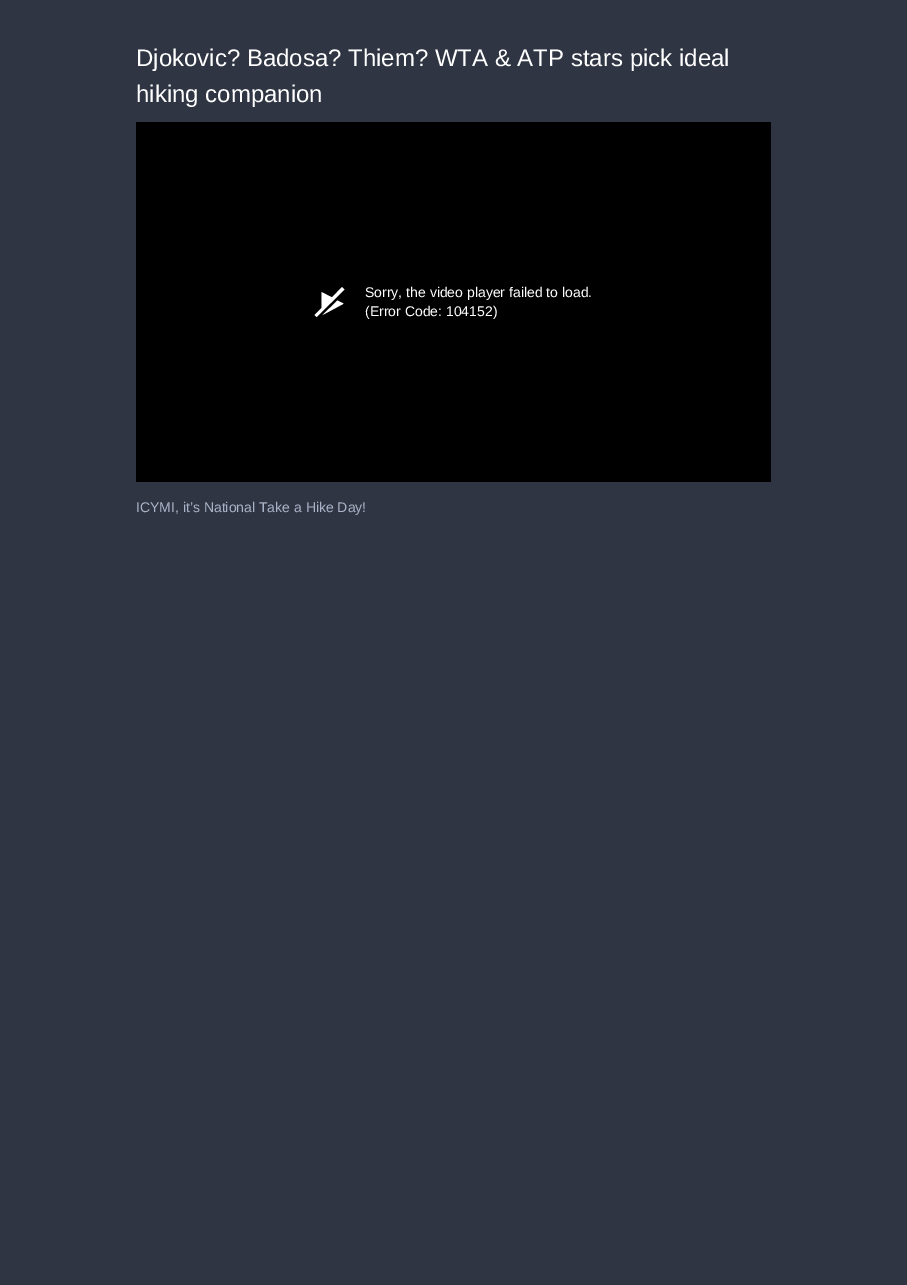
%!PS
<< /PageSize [907 1285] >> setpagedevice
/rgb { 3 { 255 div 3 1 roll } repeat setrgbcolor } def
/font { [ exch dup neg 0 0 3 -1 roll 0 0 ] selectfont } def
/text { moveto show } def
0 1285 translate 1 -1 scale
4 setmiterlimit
47 53 66 rgb
0 0 907 1285 rectfill
0 0 0 rgb
136 122 635 360 rectfill
255 255 255 rgb
343 304 moveto -20.5 11 rlineto 15 -14.5 rlineto 5.5 3 6.5 3 5.5 3.5 rcurveto closepath 342 287 moveto -10 10.5 rlineto -10.5 -5.5 rlineto 0 16 rlineto -7 7 rlineto 2 2 rlineto 28 -27.5 rlineto closepath fill
/LiberationSans-Regular 24 font
(Djokovic? Badosa? Thiem? WTA & ATP stars pick ideal) 136 66 text
(hiking companion) 136 102 text
/LiberationSans-Regular 14 font
(Sorry, the video player failed to load.) 365 297 text
(\(Error Code: 104152\)) 365 316 text
170 180 200 rgb
(ICYMI, it’s National Take a Hike Day!) 136 512 text
showpage
